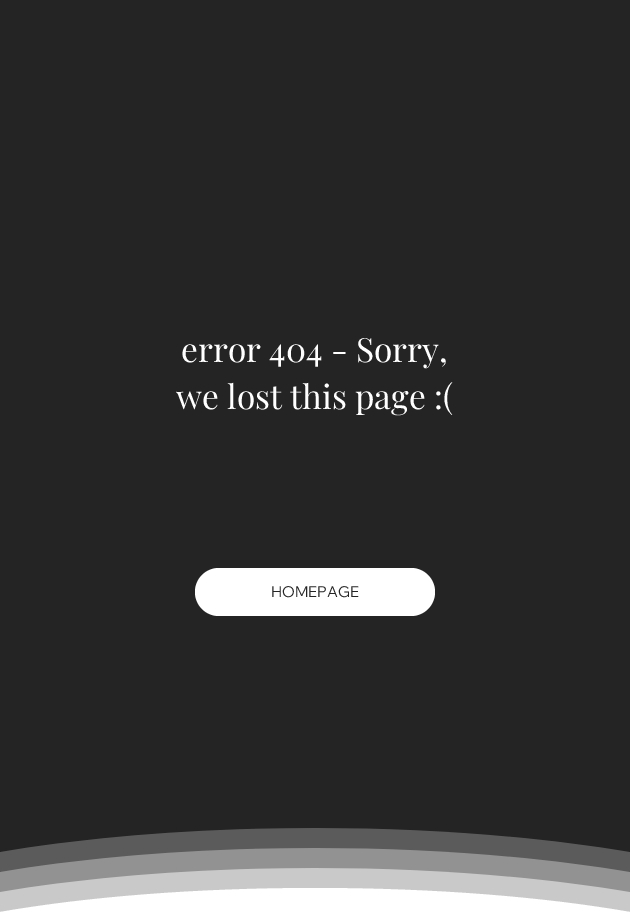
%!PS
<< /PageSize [630 912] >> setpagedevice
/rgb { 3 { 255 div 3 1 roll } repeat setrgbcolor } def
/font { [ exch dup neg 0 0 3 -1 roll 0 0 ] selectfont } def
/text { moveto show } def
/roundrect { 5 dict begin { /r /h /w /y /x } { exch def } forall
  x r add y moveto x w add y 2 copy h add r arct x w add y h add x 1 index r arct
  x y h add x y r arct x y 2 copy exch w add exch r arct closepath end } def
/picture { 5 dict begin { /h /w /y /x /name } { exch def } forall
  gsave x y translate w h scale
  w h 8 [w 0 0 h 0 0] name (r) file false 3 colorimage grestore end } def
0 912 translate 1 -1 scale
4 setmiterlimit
36 36 36 rgb
0 0 630 912 rectfill
255 255 255 rgb
195 568 240 48 24 roundrect fill
(img_01.rgb) 1 828 628 24 picture
91 91 91 rgb
0 852 630 20 rectfill
(img_02.rgb) 1 848 628 24 picture
146 146 146 rgb
0 872 630 20 rectfill
(img_03.rgb) 0 868 630 24 picture
201 201 201 rgb
0 892 630 20 rectfill
255 255 255 rgb
630 912 moveto -86 -15 -196 -24 -315 -24 rcurveto -119 0 -229 9 -315 24 rcurveto closepath fill
/PlayfairDisplay-Regular 33.5 font
(error 404 - Sorry,) 181 362 text
(we lost this page :\() 176 409 text
/WixMadeforDisplay-Regular 15 font
36 36 36 rgb
(HOMEPAGE) 271 597 text
showpage
